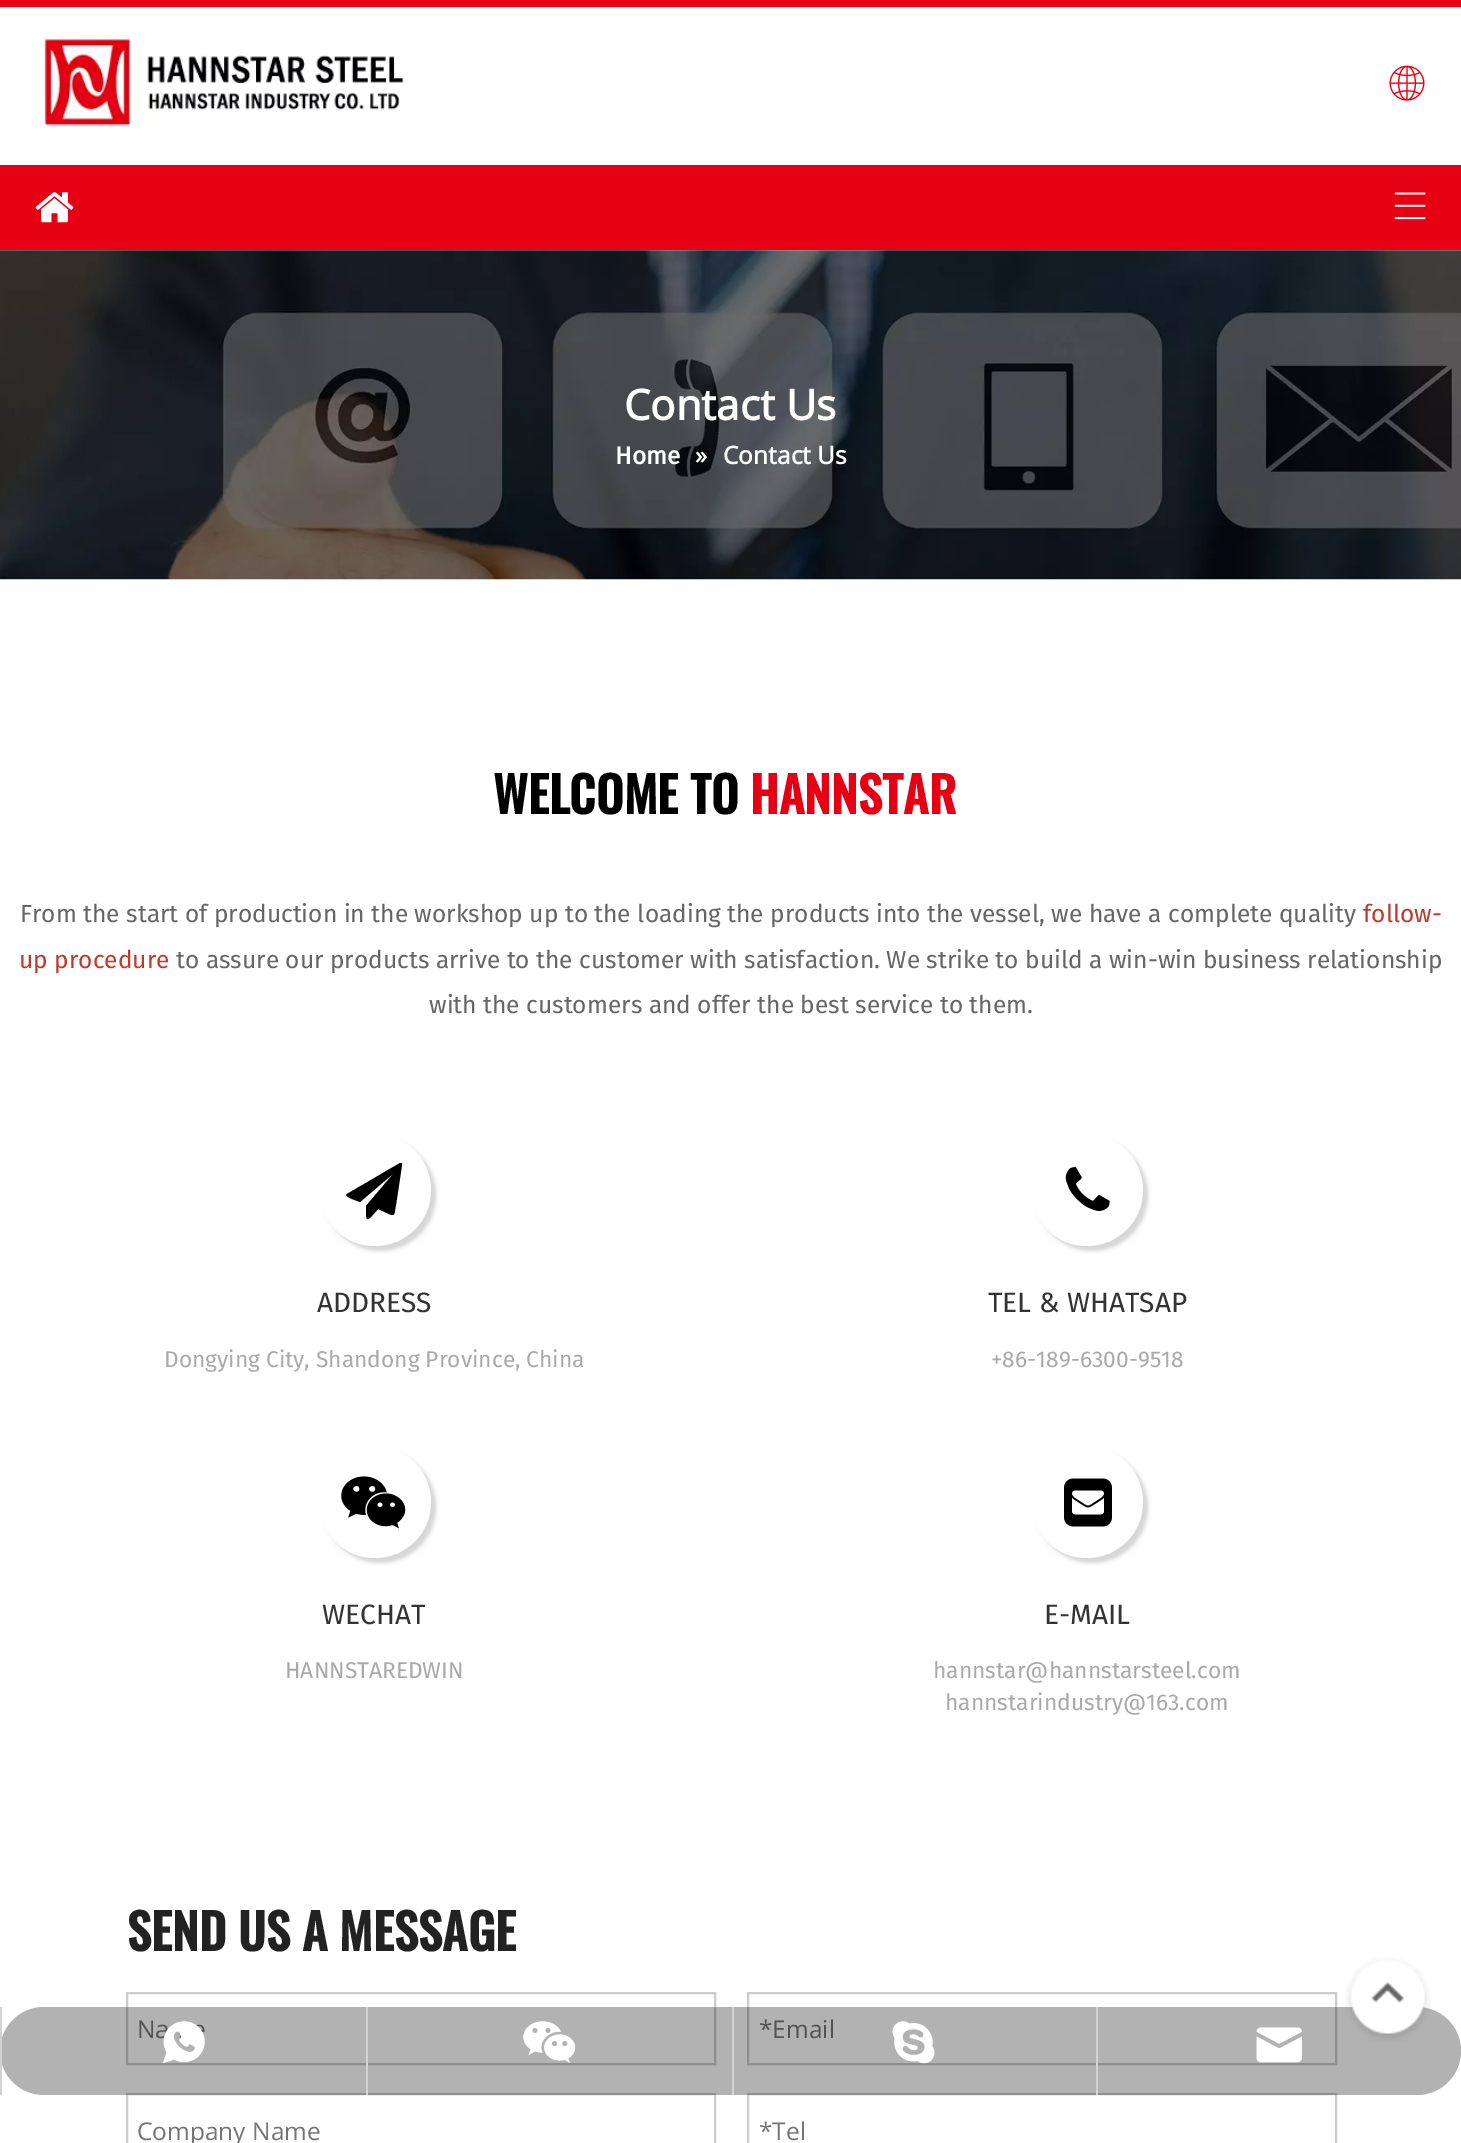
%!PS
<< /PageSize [1461 2143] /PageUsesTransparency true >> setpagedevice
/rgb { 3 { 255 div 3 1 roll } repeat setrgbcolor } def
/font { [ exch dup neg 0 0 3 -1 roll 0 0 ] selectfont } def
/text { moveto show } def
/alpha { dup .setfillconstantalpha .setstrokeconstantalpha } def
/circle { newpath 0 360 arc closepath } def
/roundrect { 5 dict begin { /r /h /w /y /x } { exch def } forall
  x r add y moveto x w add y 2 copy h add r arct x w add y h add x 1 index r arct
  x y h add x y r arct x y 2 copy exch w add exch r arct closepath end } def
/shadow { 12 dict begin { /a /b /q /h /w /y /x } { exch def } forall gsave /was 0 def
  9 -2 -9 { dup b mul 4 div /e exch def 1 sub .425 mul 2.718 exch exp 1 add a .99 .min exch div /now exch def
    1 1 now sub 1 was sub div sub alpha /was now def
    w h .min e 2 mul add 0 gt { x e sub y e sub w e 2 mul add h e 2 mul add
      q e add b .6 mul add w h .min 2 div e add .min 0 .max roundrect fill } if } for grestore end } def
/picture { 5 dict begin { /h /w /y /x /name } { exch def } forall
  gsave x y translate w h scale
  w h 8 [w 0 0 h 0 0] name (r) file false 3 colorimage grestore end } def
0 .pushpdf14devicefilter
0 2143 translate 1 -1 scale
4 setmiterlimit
255 255 255 rgb
0 0 1461 2143 rectfill
229 1 19 rgb
0 0 1461 7 rectfill
(img_01.rgb) 37 37 367 92 picture
(img_02.rgb) 1389 65 36 36 picture
0 165 1461 85 rectfill
(img_03.rgb) 35 192 39 31 picture
(img_04.rgb) 1394 192 32 28 picture
(img_05.rgb) 0 250 1461 330 picture
0 0 0 rgb
324 1139 112 112 56 2 0.16 shadow
255 255 255 rgb
375 1190 56 circle fill
0 0 0 rgb
402 1163 moveto 0 2 rlineto -6 40 rlineto -2 8 0 12 -7 9 rcurveto -11 -5 rlineto -12 14 -12 14 -12 -3 rcurveto 28 -33 rlineto -34 29 rlineto -8 -3 rlineto -1 -1 -8 -3 -5 -5 rcurveto 53 -31 rlineto closepath fill
1036 1139 112 112 56 2 0.16 shadow
255 255 255 rgb
1087 1190 56 circle fill
(img_06.rgb) 1065 1167 45 44 picture
0 0 0 rgb
324 1451 112 112 56 2 0.16 shadow
255 255 255 rgb
375 1502 56 circle fill
(img_07.rgb) 341 1476 65 53 picture
0 0 0 rgb
1036 1451 112 112 56 2 0.16 shadow
255 255 255 rgb
1087 1502 56 circle fill
(img_08.rgb) 1064 1478 48 49 picture
204 204 204 rgb
2 setlinewidth
127 1993 588 71 rectstroke
748 1993 588 71 rectstroke
127 2094 588 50 rectstroke
748 2094 588 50 rectstroke
/OpenSans-Bold 42 font
255 255 255 rgb
(Contact Us) 624 420 text
/FiraSans-Bold 24.5 font
(Home) 615 464 text
/OpenSans-Bold 24.5 font
(») 695 464 text
(Contact Us) 723 464 text
/Oswald-Bold 49 font
0 0 0 rgb
(WELCOME TO) 493 814 text
229 1 19 rgb
(HANNSTAR) 750 814 text
/FiraSans-Regular 24.5 font
102 102 102 rgb
(From the start of production in the workshop up to the loading the products into the vessel, we have a complete quality) 20 922 text
192 57 43 rgb
(follow-) 1363 922 text
(up procedure) 19 968 text
102 102 102 rgb
(to assure our products arrive to the customer with satisfaction. We strike to build a win-win business relationship) 176 968 text
(with the customers and offer the best service to them.) 429 1013 text
/FiraSans-Regular 28 font
51 51 51 rgb
(ADDRESS) 317 1312 text
/FiraSans-Regular 22.75 font
169 169 169 rgb
(Dongying City, Shandong Province, China) 164 1367 text
/FiraSans-Regular 28 font
51 51 51 rgb
(TEL & WHATSAP) 988 1312 text
/FiraSans-Regular 22.75 font
169 169 169 rgb
(+86-189-6300-9518) 991 1367 text
/FiraSans-Regular 28 font
51 51 51 rgb
(WECHAT) 322 1624 text
/FiraSans-Regular 22.75 font
169 169 169 rgb
(HANNSTAREDWIN) 285 1678 text
/FiraSans-Regular 28 font
51 51 51 rgb
(E-MAIL) 1044 1624 text
/FiraSans-Regular 22.75 font
169 169 169 rgb
(hannstar@hannstarsteel.com) 933 1678 text
(hannstarindustry@163.com) 945 1710 text
/Oswald-Bold 49 font
34 34 34 rgb
(SEND US A MESSAGE) 127 1951 text
/OpenSans-Regular 24.5 font
117 117 117 rgb
(Na) 137 2038 text
(*Email) 759 2038 text
(Company Name) 137 2140 text
(*Tel) 759 2140 text
0.3 alpha
0 0 0 rgb
0 2007 1461 88 44 roundrect fill
1 alpha
(img_09.rgb) 1345 1957 86 85 picture
211 211 211 rgb
0 2007 2 88 rectfill
(img_10.rgb) 162 2021 43 43 picture
366 2007 2 88 rectfill
(img_11.rgb) 523 2021 53 42 picture
732 2007 2 88 rectfill
(img_12.rgb) 892 2021 43 43 picture
1096 2007 2 88 rectfill
(img_13.rgb) 1256 2027 46 36 picture
.poppdf14devicefilter showpage
